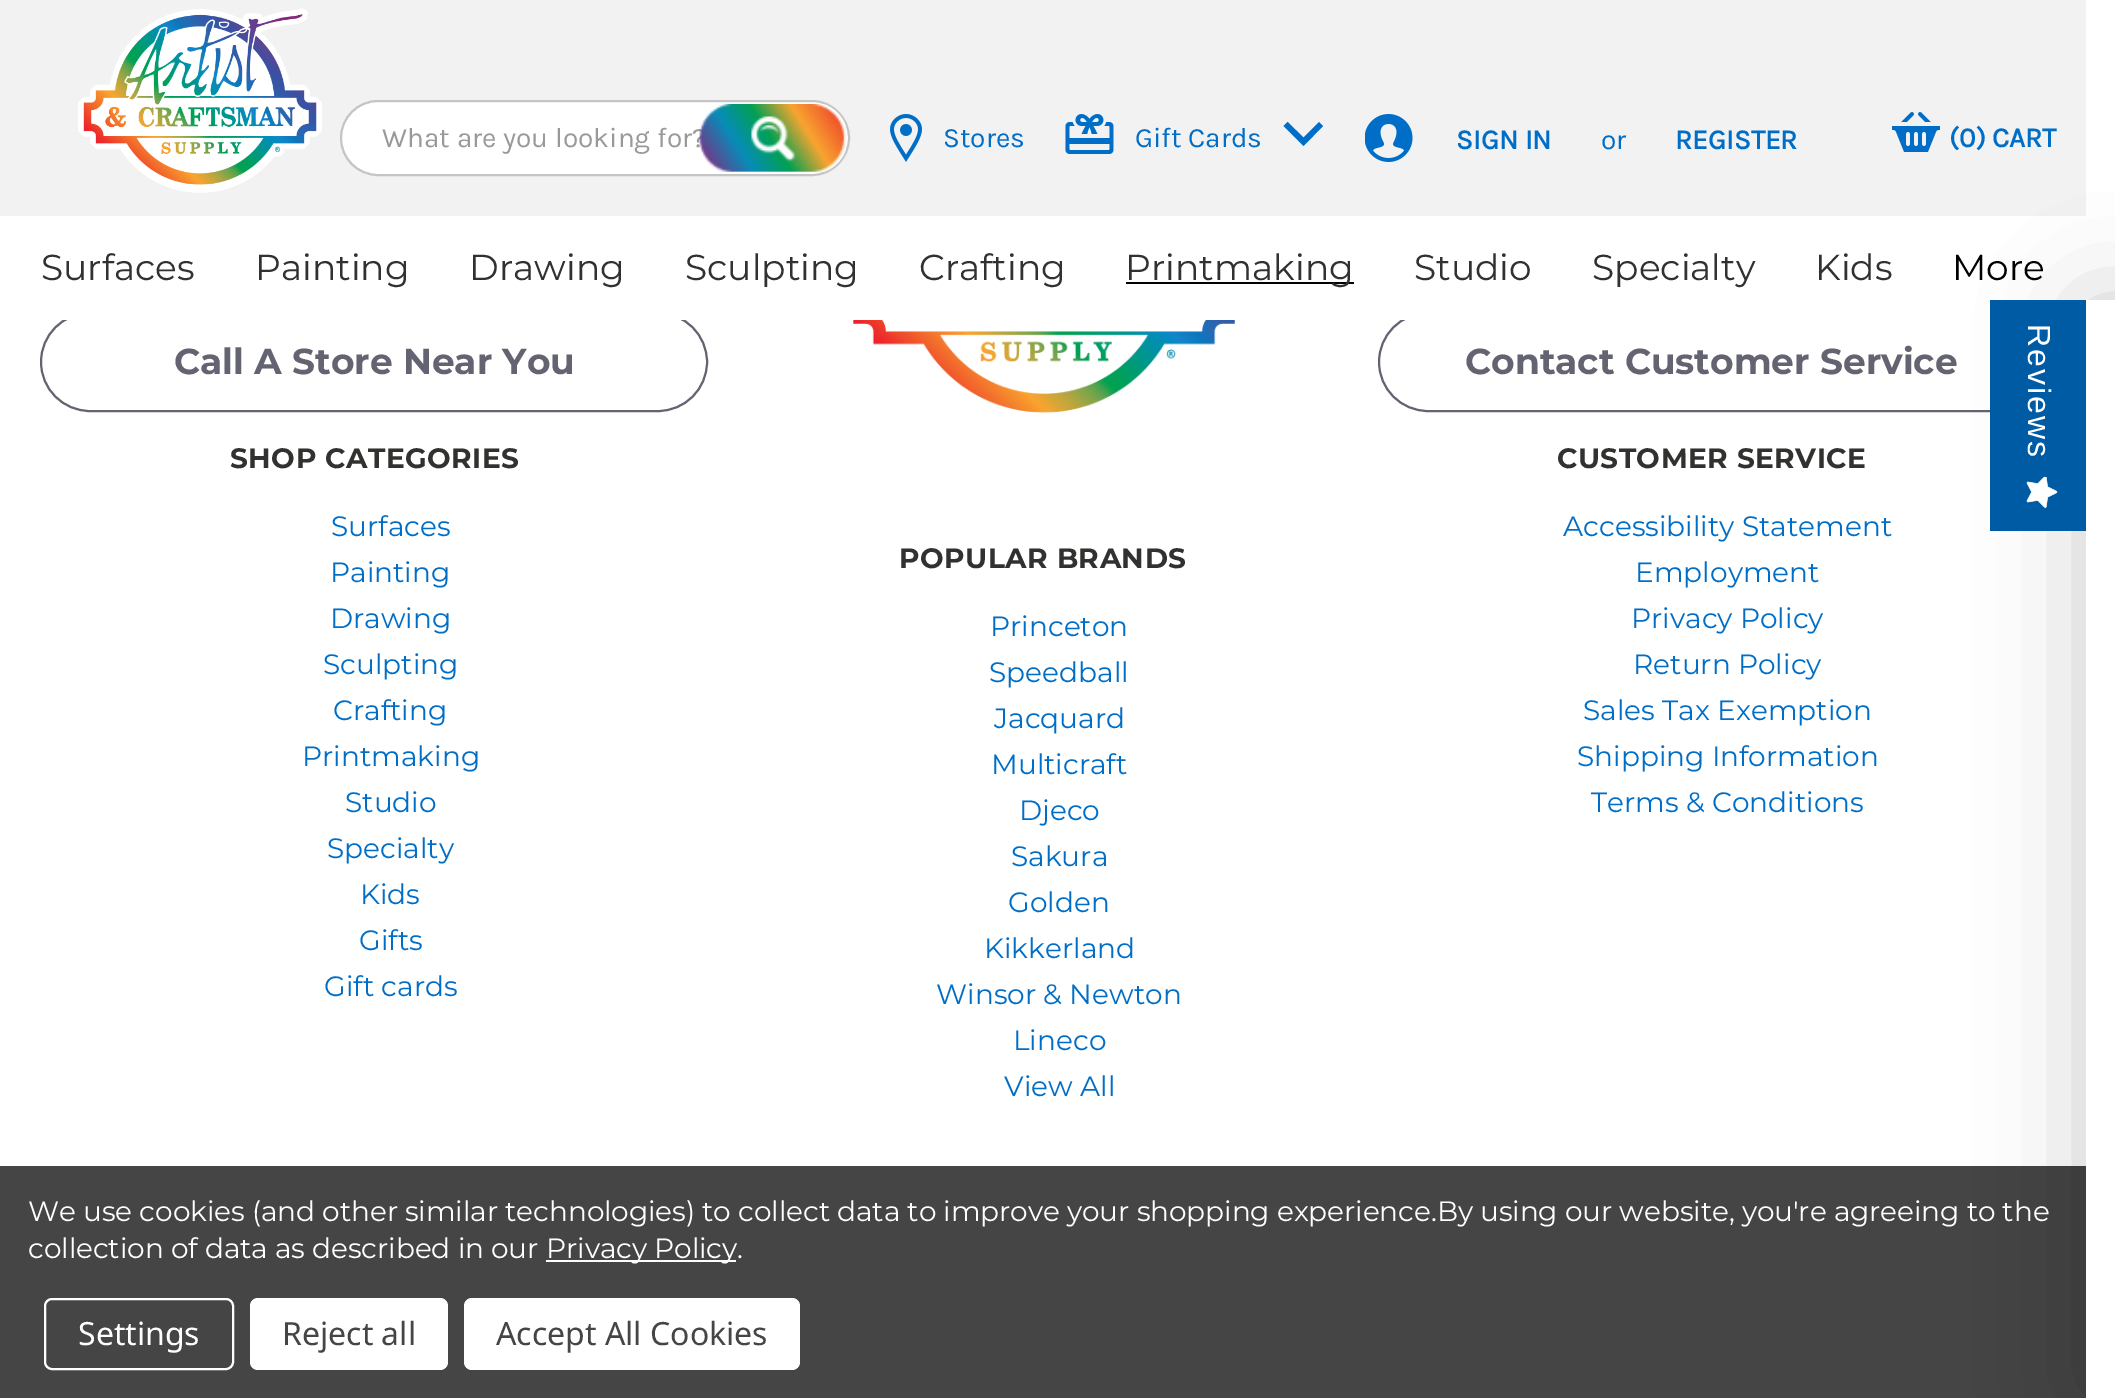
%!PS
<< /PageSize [2115 1398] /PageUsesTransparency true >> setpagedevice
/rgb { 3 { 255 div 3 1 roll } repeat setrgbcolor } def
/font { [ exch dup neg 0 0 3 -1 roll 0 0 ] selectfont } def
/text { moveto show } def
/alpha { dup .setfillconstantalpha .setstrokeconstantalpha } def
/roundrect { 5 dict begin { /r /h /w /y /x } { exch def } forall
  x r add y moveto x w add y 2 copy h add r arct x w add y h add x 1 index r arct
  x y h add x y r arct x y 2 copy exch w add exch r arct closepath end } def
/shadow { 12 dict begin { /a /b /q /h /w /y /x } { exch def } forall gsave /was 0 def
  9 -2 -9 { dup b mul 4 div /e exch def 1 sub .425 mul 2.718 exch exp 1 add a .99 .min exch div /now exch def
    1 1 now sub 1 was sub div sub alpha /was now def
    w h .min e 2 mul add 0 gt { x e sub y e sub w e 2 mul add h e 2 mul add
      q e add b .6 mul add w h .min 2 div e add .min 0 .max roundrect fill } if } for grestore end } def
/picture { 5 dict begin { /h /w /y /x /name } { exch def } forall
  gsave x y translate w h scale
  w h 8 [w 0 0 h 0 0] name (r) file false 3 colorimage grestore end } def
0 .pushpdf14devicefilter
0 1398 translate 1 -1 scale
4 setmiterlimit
255 255 255 rgb
0 0 2115 1398 rectfill
100 99 113 rgb
2 setlinewidth
41 313 666 98 49 roundrect stroke
1379 313 666 98 49 roundrect stroke
255 255 255 rgb
63 312 1960 8 rectfill
242 242 242 rgb
0 0 2086 216 rectfill
(img_01.rgb) 78 8 244 185 picture
255 255 255 rgb
341 101 508 74 37 roundrect gsave fill grestore
197 197 197 rgb
stroke
(img_03.rgb) 890 114 32 48 picture
(img_04.rgb) 1065 114 49 40 picture
0 110 199 rgb
1287.5 122 moveto -4 4 rlineto 20 20 rlineto 19.5 -20 rlineto -4 -4 rlineto -15.5 15.5 rlineto closepath fill
(img_05.rgb) 1365 114 48 48 picture
(img_06.rgb) 1892 112 48 40 picture
0 0 0 rgb
1126 282 228 2 rectfill
(img_07.rgb) 853 320 382 93 picture
69 69 69 rgb
0 1166 2086 232 rectfill
gsave
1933 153 moveto 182 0 rlineto 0 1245 rlineto -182 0 rlineto closepath 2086 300 moveto 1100 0 rlineto 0 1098 rlineto -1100 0 rlineto closepath eoclip newpath
0 0 0 rgb
2084 304 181 1090 0 50 0.2 shadow
grestore
0 91 165 rgb
1990 300 96 231 rectfill
(img_08.rgb) 2026 476 32 32 picture
255 255 255 rgb
546 1260 190 2 rectfill
45 1299 188 70 7 roundrect stroke
250 1298 198 72 8 roundrect fill
464 1298 336 72 8 roundrect fill
/Karla-Regular 28 font
153 153 153 rgb
(What are you looking for?) 382 147 text
(img_02.rgb) 699 104 147 68 picture
0 110 199 rgb
(Stores) 943 147 text
(Gift Cards) 1135 147 text
/Karla-Bold 28 font
(SIGN IN) 1456 149 text
/Karla-Regular 28 font
(or) 1601 149 text
/Karla-Bold 28 font
(REGISTER) 1675 149 text
(\(0\)) 1949 147 text
(CART) 1992 147 text
/Montserrat-Regular 36 font
49 49 47 rgb
(Surfaces) 41 280 text
(Painting) 255 280 text
(Drawing) 469 280 text
(Sculpting) 685 280 text
(Crafting) 919 280 text
(Printmaking) 1125 280 text
(Studio) 1414 280 text
(Specialty) 1592 280 text
(Kids) 1815 280 text
0 0 0 rgb
(More) 1952 280 text
/Montserrat-Bold 36 font
100 99 113 rgb
(Call A Store Near You) 174 374 text
(Contact Customer Service) 1465 374 text
/Montserrat-Bold 28 font
49 49 47 rgb
230 468 moveto 0.5 0 (SHOP CATEGORIES) ashow
/Montserrat-Regular 28 font
0 110 199 rgb
(Surfaces) 331 536 text
(Painting) 330 582 text
(Drawing) 330 628 text
(Sculpting) 323 674 text
(Crafting) 333 720 text
(Printmaking) 302 766 text
(Studio) 345 812 text
(Specialty) 327 858 text
(Kids) 360 904 text
(Gifts) 359 950 text
(Gift cards) 324 996 text
/Montserrat-Bold 28 font
49 49 47 rgb
899 568 moveto 0.5 0 (POPULAR BRANDS) ashow
/Montserrat-Regular 28 font
0 110 199 rgb
(Princeton) 990 636 text
(Speedball) 989 682 text
(Jacquard) 994 728 text
(Multicraft) 991 774 text
(Djeco) 1019 820 text
(Sakura) 1011 866 text
(Golden) 1008 912 text
(Kikkerland) 984 958 text
(Winsor & Newton) 936 1004 text
(Lineco) 1013 1050 text
(View All) 1004 1096 text
/Montserrat-Bold 28 font
49 49 47 rgb
1557 468 moveto 0.5 0 (CUSTOMER SERVICE) ashow
/Montserrat-Regular 28 font
0 110 199 rgb
(Accessibility Statement) 1563 536 text
(Employment) 1635 582 text
(Privacy Policy) 1631 628 text
(Return Policy) 1633 674 text
(Sales Tax Exemption) 1583 720 text
(Shipping Information) 1577 766 text
(Terms & Conditions) 1591 812 text
/LiberationSans-Regular 32 font
255 255 255 rgb
gsave 2028 324 translate 90 rotate 0 0 moveto 2 0 (Reviews) ashow grestore
/Montserrat-Regular 28 font
28 1221 moveto -0.1 0 (We use cookies \(and other similar technologies\) to collect data to improve your shopping experience.By using our website, you're agreeing to the) ashow
28 1258 moveto -0.1 0 (collection of data as described in our) ashow
546 1258 moveto -0.1 0 (Privacy Policy.) ashow
/NotoSans-Regular 32 font
(Settings) 78 1345 text
69 69 69 rgb
(Reject all) 282 1345 text
(Accept All Cookies) 496 1345 text
.poppdf14devicefilter showpage
